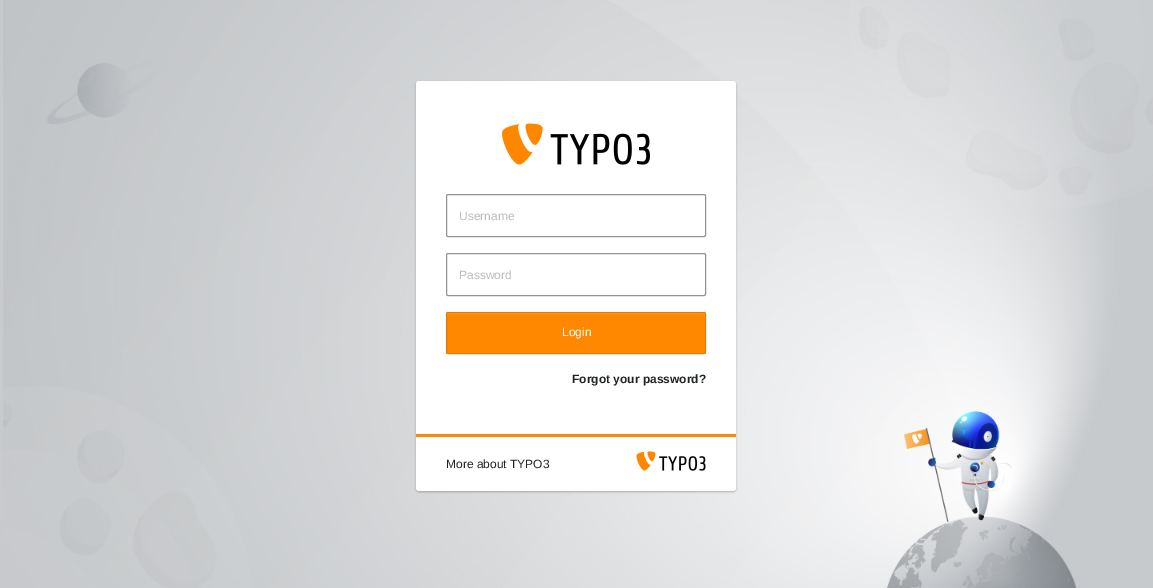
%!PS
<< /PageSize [1153 588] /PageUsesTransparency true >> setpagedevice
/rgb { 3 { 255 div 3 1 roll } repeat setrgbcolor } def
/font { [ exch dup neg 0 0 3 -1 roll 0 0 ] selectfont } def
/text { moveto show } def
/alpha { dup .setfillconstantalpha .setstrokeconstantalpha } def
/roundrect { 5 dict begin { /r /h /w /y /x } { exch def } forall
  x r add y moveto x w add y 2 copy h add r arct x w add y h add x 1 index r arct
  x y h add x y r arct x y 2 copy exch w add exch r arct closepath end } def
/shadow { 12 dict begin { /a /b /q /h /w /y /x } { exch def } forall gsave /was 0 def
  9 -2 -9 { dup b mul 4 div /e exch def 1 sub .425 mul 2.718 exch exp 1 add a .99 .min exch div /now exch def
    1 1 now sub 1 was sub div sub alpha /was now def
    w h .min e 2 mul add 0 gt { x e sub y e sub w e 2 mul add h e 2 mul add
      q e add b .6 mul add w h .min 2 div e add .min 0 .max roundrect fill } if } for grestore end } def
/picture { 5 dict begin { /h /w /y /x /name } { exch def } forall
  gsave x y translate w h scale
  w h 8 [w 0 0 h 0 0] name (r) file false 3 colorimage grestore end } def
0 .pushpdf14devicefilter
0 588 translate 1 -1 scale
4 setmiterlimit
255 255 255 rgb
0 0 1153 588 rectfill
(img_01.rgb) 0 0 1153 588 picture
0 0 0 rgb
416 82 320 410 3 1 0.25 shadow
255 255 255 rgb
416 81 320 410 3 roundrect fill
(img_02.rgb) 502 123 148 42 picture
148 148 148 rgb
446.5 194.5 259 42 1.5 roundrect stroke
446.5 253.5 259 42 1.5 roundrect stroke
0 0 0 rgb
446 313 260 42 2 0.5 0.07 shadow
255 136 0 rgb
446 312 260 42 2 roundrect fill
255 154 38 rgb
448 314 moveto 256 0 rlineto 1 0 1 0 1 1 rcurveto 0 -2 rlineto -257 0 rlineto -1 0 -1 1 -1 2 rcurveto 0 -1 0 -1 1 -1 rcurveto closepath fill
0.1 alpha
0 0 0 rgb
446.5 312.5 259 41 1.5 roundrect stroke
1 alpha
255 136 0 rgb
416 434 320 3 rectfill
(img_03.rgb) 636 451 70 20 picture
/LiberationSans-Regular 12 font
187 187 187 rgb
(Username) 459 220 text
(Password) 459 279 text
255 255 255 rgb
(Login) 562 336 text
/LiberationSans-Bold 12 font
33 36 36 rgb
(Forgot your password?) 572 383 text
/LiberationSans-Regular 12 font
(More about TYPO3) 446 468 text
.poppdf14devicefilter showpage
